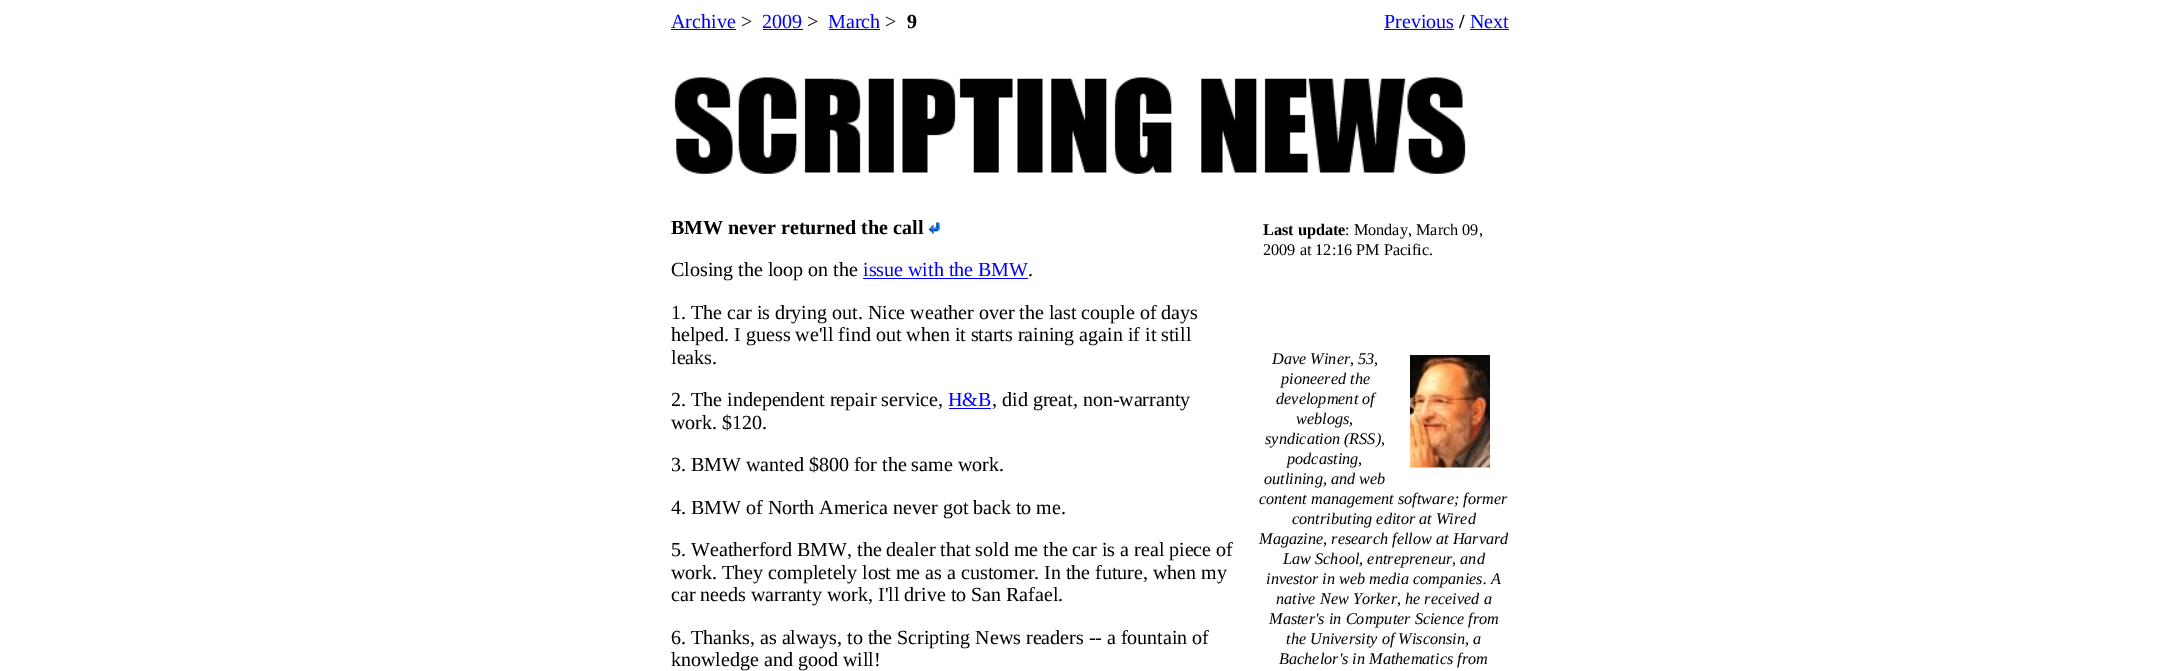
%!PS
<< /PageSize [2179 671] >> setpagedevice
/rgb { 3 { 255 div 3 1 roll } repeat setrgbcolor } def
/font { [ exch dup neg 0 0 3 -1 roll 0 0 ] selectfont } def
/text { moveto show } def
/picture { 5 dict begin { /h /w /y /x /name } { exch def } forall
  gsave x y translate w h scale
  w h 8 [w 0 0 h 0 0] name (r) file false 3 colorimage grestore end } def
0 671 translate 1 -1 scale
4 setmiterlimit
255 255 255 rgb
0 0 2179 671 rectfill
0 0 255 rgb
671 29 65 1 rectfill
763 29 40 1 rectfill
829 29 51 1 rectfill
1384 29 70 1 rectfill
1470 29 39 1 rectfill
(img_01.rgb) 674 77 792 97 picture
(img_02.rgb) 928 222 13 12 picture
863 278 165 1 rectfill
949 408 42 1 rectfill
(img_03.rgb) 1410 355 80 113 picture
/LiberationSerif-Regular 20 font
(Archive) 671 28 text
0 0 0 rgb
(>) 741 28 text
0 0 255 rgb
(2009) 762 28 text
0 0 0 rgb
(>) 807 28 text
0 0 255 rgb
(March) 828 28 text
0 0 0 rgb
(>) 885 28 text
/LiberationSerif-Bold 20 font
(9) 907 28 text
/LiberationSerif-Regular 20 font
0 0 255 rgb
(Previous) 1384 28 text
/LiberationSerif-Bold 20 font
0 0 0 rgb
(/) 1459 28 text
/LiberationSerif-Regular 20 font
0 0 255 rgb
(Next) 1470 28 text
/LiberationSerif-Bold 20 font
0 0 0 rgb
(BMW never returned the call) 671 234 text
/LiberationSerif-Regular 20 font
(Closing the loop on the) 671 276 text
0 0 255 rgb
(issue with the BMW) 863 276 text
0 0 0 rgb
(.) 1028 276 text
(1. The car is drying out. Nice weather over the last couple of days) 671 319 text
(helped. I guess we'll find out when it starts raining again if it still) 671 341 text
(leaks.) 671 364 text
(2. The independent repair service,) 671 406 text
0 0 255 rgb
(H&B) 948 406 text
0 0 0 rgb
(, did great, non-warranty) 992 406 text
(work. $120.) 671 429 text
(3. BMW wanted $800 for the same work.) 671 471 text
(4. BMW of North America never got back to me.) 671 514 text
(5. Weatherford BMW, the dealer that sold me the car is a real piece of) 671 556 text
(work. They completely lost me as a customer. In the future, when my) 671 579 text
(car needs warranty work, I'll drive to San Rafael.) 671 601 text
(6. Thanks, as always, to the Scripting News readers -- a fountain of) 671 644 text
(knowledge and good will!) 671 666 text
/LiberationSerif-Bold 16.25 font
(Last update) 1263 235 text
/LiberationSerif-Regular 16.25 font
(: Monday, March 09,) 1345 235 text
(2009 at 12:16 PM Pacific.) 1263 255 text
/LiberationSerif-Italic 16.25 font
(Dave Winer, 53,) 1272 364 text
(pioneered the) 1281 384 text
(development of) 1276 404 text
(weblogs,) 1296 424 text
(syndication \(RSS\),) 1265 444 text
(podcasting,) 1287 464 text
(outlining, and web) 1264 484 text
(content management software; former) 1259 504 text
(contributing editor at Wired) 1292 524 text
(Magazine, research fellow at Harvard) 1259 544 text
(Law School, entrepreneur, and) 1283 564 text
(investor in web media companies. A) 1266 584 text
(native New Yorker, he received a) 1276 604 text
(Master's in Computer Science from) 1269 624 text
(the University of Wisconsin, a) 1286 644 text
(Bachelor's in Mathematics from) 1279 664 text
showpage
